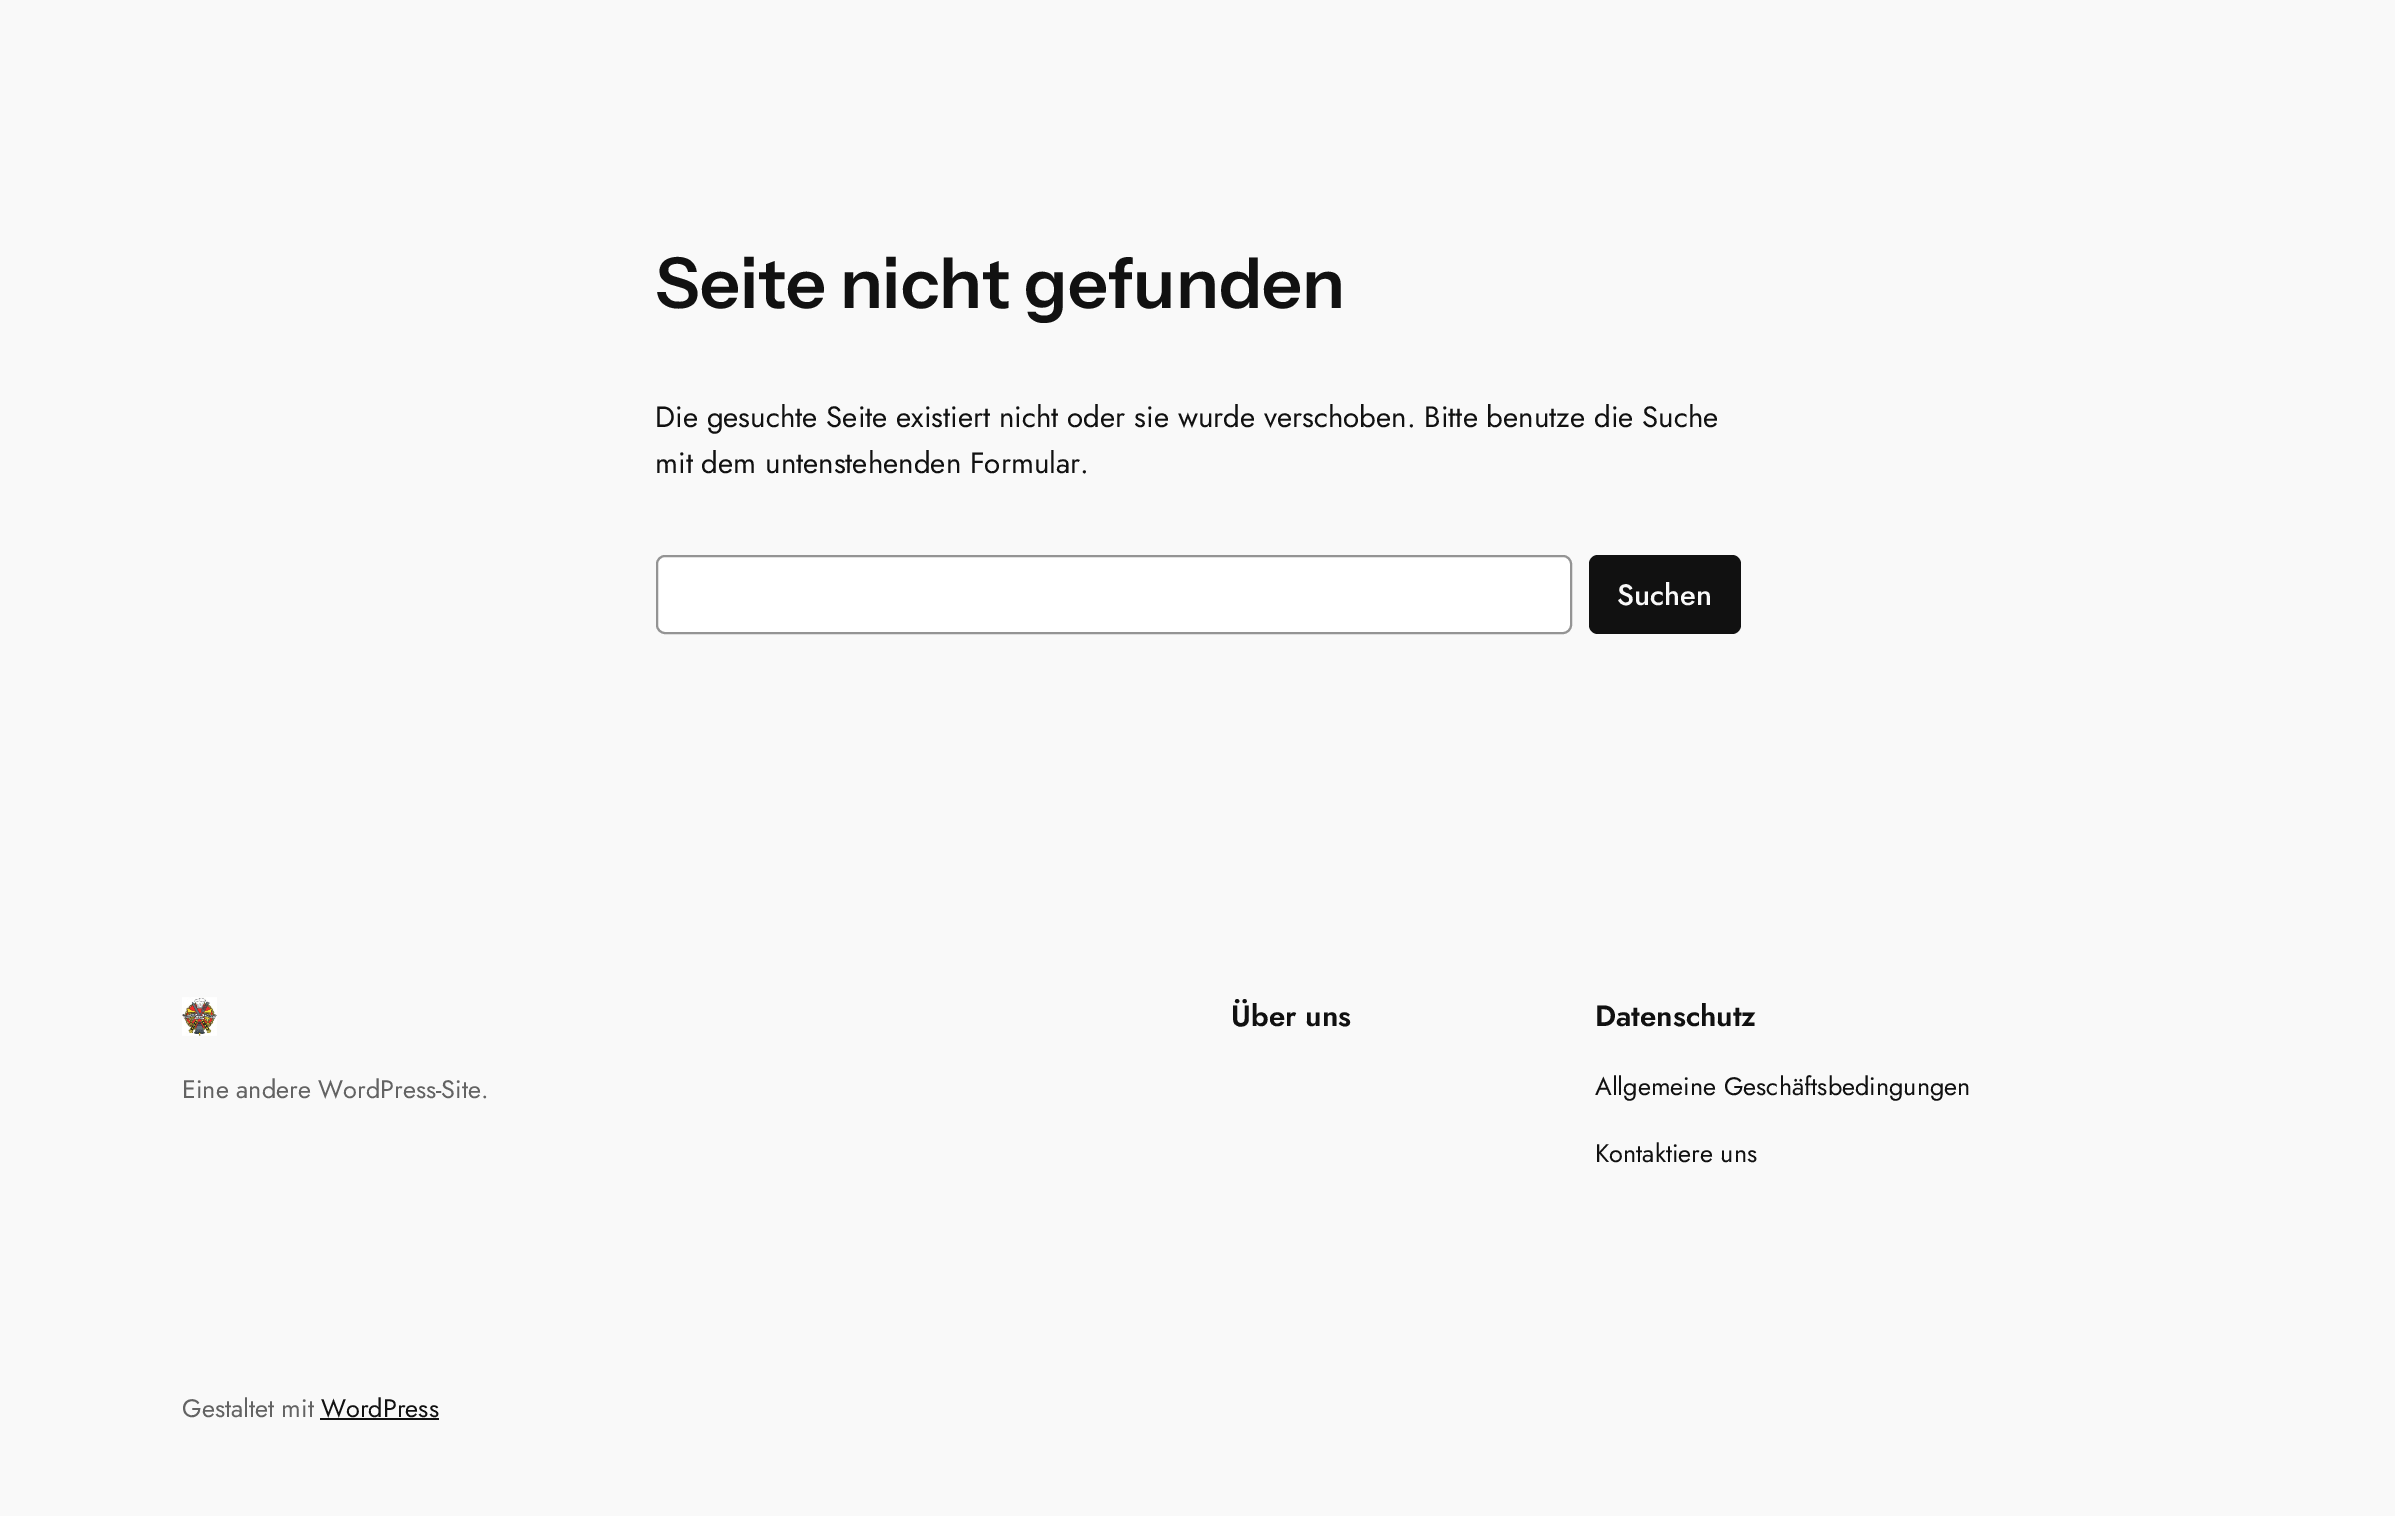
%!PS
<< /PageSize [2395 1516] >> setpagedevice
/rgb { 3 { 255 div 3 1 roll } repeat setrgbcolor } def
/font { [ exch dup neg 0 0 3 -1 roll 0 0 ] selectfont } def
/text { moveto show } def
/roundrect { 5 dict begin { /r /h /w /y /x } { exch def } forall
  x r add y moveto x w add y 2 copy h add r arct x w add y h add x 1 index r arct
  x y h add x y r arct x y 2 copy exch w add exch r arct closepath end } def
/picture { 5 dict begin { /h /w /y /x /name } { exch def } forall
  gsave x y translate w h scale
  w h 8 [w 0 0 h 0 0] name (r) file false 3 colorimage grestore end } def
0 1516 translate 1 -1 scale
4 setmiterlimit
249 249 249 rgb
0 0 2395 1516 rectfill
255 255 255 rgb
657 556 914 77 8 roundrect gsave fill grestore
148 148 148 rgb
2 setlinewidth
stroke
17 17 17 rgb
1589 555 152 79 9 roundrect fill
(img_01.rgb) 182 997 35 39 picture
320 1418 119 2 rectfill
/InstrumentSans-SemiBold 70 font
(Seite nicht gefunden) 655 308 text
/Jost-Regular 29.4 font
(Die gesuchte Seite existiert nicht oder sie wurde verschoben. Bitte benutze die Suche) 655 427 text
(mit dem untenstehenden Formular.) 655 473 text
/Jost-Medium 29.4 font
249 249 249 rgb
(Suchen) 1617 605 text
/Jost-Regular 25.25 font
99 99 99 rgb
(Eine andere WordPress-Site.) 182 1098 text
/Jost-SemiBold 29.4 font
17 17 17 rgb
(Über uns) 1231 1026 text
(Datenschutz) 1595 1026 text
/Jost-Regular 25.25 font
(Allgemeine Geschäftsbedingungen) 1595 1095 text
(Kontaktiere uns) 1595 1162 text
99 99 99 rgb
(Gestaltet mit) 182 1417 text
17 17 17 rgb
(WordPress) 321 1417 text
showpage
